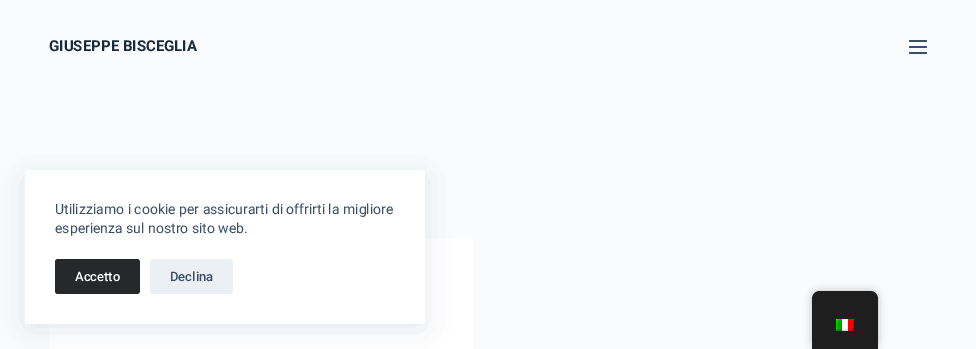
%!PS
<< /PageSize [976 349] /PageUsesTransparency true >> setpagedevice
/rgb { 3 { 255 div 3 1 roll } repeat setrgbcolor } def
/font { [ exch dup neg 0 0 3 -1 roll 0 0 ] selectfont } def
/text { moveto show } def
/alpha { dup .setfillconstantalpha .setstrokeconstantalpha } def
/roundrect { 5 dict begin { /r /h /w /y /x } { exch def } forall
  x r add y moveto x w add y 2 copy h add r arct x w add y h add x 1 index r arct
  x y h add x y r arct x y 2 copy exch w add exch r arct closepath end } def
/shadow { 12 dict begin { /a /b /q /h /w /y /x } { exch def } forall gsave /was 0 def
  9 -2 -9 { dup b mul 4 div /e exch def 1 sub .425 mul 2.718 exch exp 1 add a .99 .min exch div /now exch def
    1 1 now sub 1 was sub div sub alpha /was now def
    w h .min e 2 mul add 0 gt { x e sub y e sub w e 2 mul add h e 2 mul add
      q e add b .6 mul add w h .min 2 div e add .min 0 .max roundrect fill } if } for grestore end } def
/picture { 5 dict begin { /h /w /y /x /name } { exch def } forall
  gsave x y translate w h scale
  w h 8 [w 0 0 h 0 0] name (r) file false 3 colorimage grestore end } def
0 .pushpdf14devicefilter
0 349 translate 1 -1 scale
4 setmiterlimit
250 251 252 rgb
0 0 976 349 rectfill
58 79 102 rgb
909 40 18 2 1 roundrect fill
909 46 18 2 1 roundrect fill
909 52 18 2 1 roundrect fill
255 255 255 rgb
49 238 424 111 rectfill
34 56 101 rgb
30 180 390 144 0 15 0.15 shadow
255 255 255 rgb
25 170 400 154 3 roundrect fill
39 40 41 rgb
55 259 85 35 3 roundrect fill
236 239 243 rgb
150 259 83 35 3 roundrect fill
0 0 0 rgb
812 291 66 58 8 4 0.25 shadow
30 30 30 rgb
820 291 moveto 50 0 rlineto 4.5 0 8 3.5 8 8 rcurveto 0 50 rlineto -66 0 rlineto 0 -50 rlineto 0 -4.5 3.5 -8 8 -8 rcurveto closepath fill
(img_01.rgb) 836 319 18 12 picture
/Roboto-Bold 15 font
25 42 61 rgb
(GIUSEPPE BISCEGLIA) 49 51 text
/Roboto-Regular 14 font
58 79 102 rgb
(Utilizziamo i cookie per assicurarti di offrirti la migliore) 55 214 text
(esperienza sul nostro sito web.) 55 233 text
/Roboto-Medium 13 font
255 255 255 rgb
(Accetto) 75 281 text
58 79 102 rgb
(Declina) 170 281 text
.poppdf14devicefilter showpage
